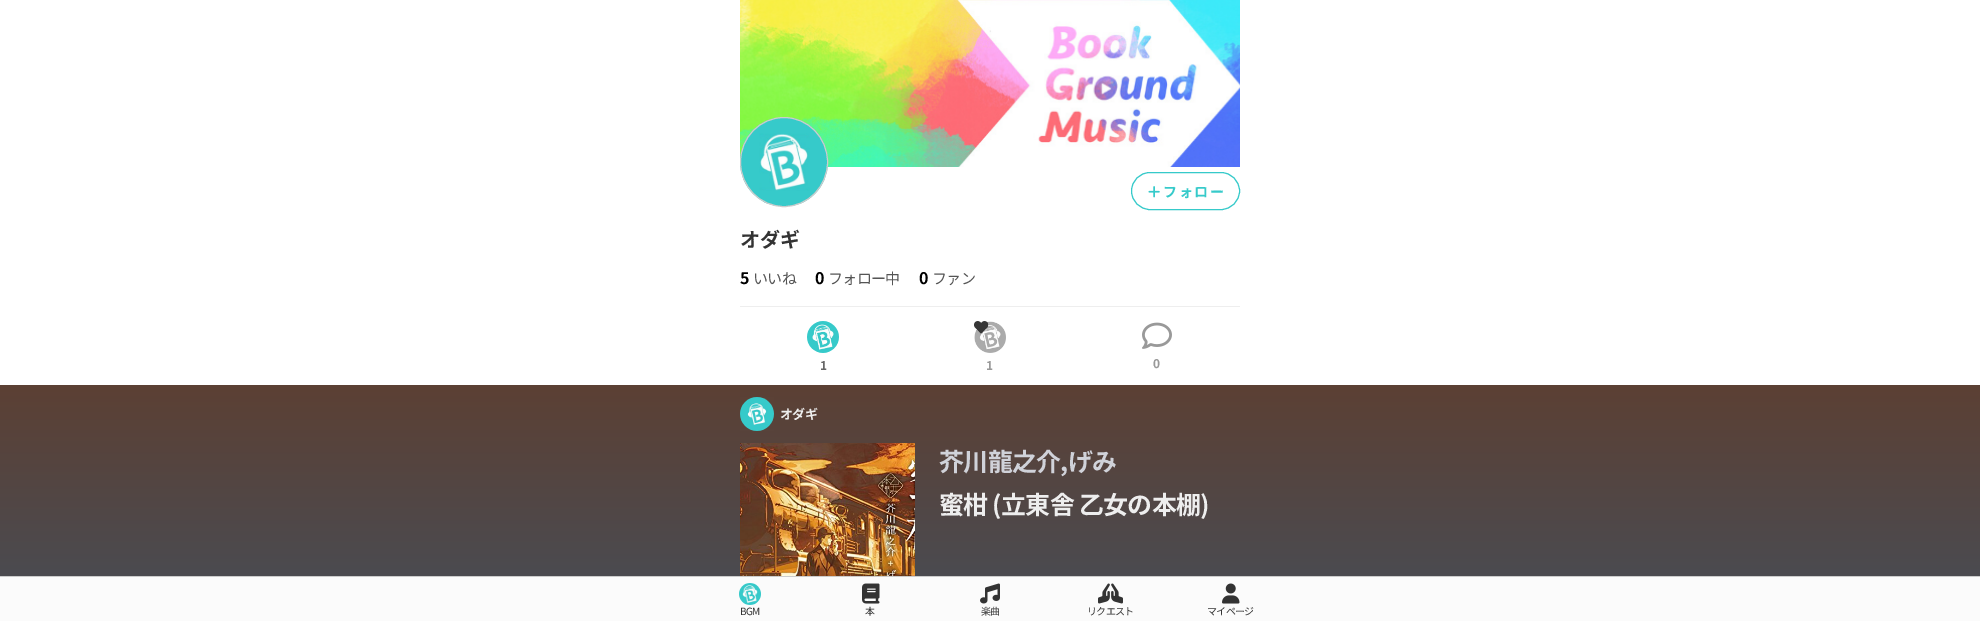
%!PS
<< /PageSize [1980 621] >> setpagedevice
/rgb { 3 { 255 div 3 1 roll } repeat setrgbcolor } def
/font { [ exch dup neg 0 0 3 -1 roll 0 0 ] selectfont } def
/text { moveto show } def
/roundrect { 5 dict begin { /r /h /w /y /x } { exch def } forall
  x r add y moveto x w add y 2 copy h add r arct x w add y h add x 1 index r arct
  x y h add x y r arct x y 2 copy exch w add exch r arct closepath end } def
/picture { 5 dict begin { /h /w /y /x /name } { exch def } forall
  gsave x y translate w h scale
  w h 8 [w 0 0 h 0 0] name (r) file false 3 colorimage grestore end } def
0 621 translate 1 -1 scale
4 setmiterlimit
255 255 255 rgb
0 0 1980 621 rectfill
(img_01.rgb) 740 0 500 167 picture
(img_02.rgb) 740 118 88 88 picture
204 204 204 rgb
784 117.5 moveto 24 0 43.5 20 43.5 44.5 rcurveto 0 24.5 -19.5 44.5 -43.5 44.5 rcurveto -24 0 -43.5 -20 -43.5 -44.5 rcurveto 0 -24.5 19.5 -44.5 43.5 -44.5 rcurveto closepath stroke
54 202 202 rgb
1131.5 172.5 108 37 18.5 roundrect stroke
(img_03.rgb) 1148 186 12 12 picture
238 238 238 rgb
740 306 500 1 rectfill
(img_04.rgb) 807 321 32 32 picture
(img_05.rgb) 974 321 32 32 picture
(img_06.rgb) 1142 322 30 27 picture
gsave 0 385 moveto 1980 0 rlineto 0 191 rlineto -1980 0 rlineto closepath clip newpath
<< /ShadingType 2 /ColorSpace /DeviceRGB /Coords [990 385 990 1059] /Extend [true true] /Function << /FunctionType 3 /Domain [0 1] /Functions [<< /FunctionType 2 /Domain [0 1] /C0 [0.361 0.251 0.204] /C1 [0.153 0.38 0.537] /N 1 >> << /FunctionType 2 /Domain [0 1] /C0 [0.153 0.38 0.537] /C1 [0.153 0.38 0.537] /N 1 >>] /Bounds [0.86] /Encode [0 1 0 1] >> >> shfill grestore
(img_07.rgb) 740 397 34 34 picture
(img_08.rgb) 740 443 175 133 picture
251 251 251 rgb
0 577 1980 44 rectfill
204 204 204 rgb
0 576 1980 1 rectfill
(img_09.rgb) 739 583 22 22 picture
(img_10.rgb) 862 583 18 21 picture
(img_11.rgb) 980 583 20 21 picture
(img_12.rgb) 1098 583 25 21 picture
(img_13.rgb) 1222 583 18 21 picture
/NotoSansJP-Bold 14 font
54 202 202 rgb
1163 197 moveto 1.5 0 (フォロー) ashow
/NotoSansJP-Bold 20 font
51 51 51 rgb
(オダギ) 740 247 text
/NotoSansJP-Bold 16 font
0 0 0 rgb
740 284 moveto -0.75 0 (5) ashow
/NotoSansJP-Regular 15 font
85 85 85 rgb
753 284 moveto -0.75 0 (いいね) ashow
/NotoSansJP-Bold 16 font
0 0 0 rgb
815 284 moveto -0.75 0 (0) ashow
/NotoSansJP-Regular 15 font
85 85 85 rgb
828 284 moveto -0.75 0 (フォロー中) ashow
/NotoSansJP-Bold 16 font
0 0 0 rgb
919 284 moveto -0.75 0 (0) ashow
/NotoSansJP-Regular 15 font
85 85 85 rgb
932 284 moveto -0.75 0 (ファン) ashow
/NotoSansJP-Bold 12 font
102 102 102 rgb
(1) 820 370 text
153 153 153 rgb
(1) 986 370 text
(0) 1153 368 text
/NotoSansJP-Bold 13 font
238 238 238 rgb
780 419 moveto -0.75 0 (オダギ) ashow
/NotoSansJP-Bold 25 font
208 210 217 rgb
939 471 moveto -0.75 0 (芥川龍之介,げみ) ashow
238 238 238 rgb
939 514 moveto -0.75 0 (蜜柑 \(立東舎 乙女の本棚\)) ashow
/NotoSansJP-Regular 10 font
51 51 51 rgb
740 615 moveto -0.75 0 (BGM) ashow
865 615 moveto -0.75 0 (本) ashow
981 615 moveto -0.75 0 (楽曲) ashow
1087 615 moveto -0.75 0 (リクエスト) ashow
1207 615 moveto -0.75 0 (マイページ) ashow
showpage
